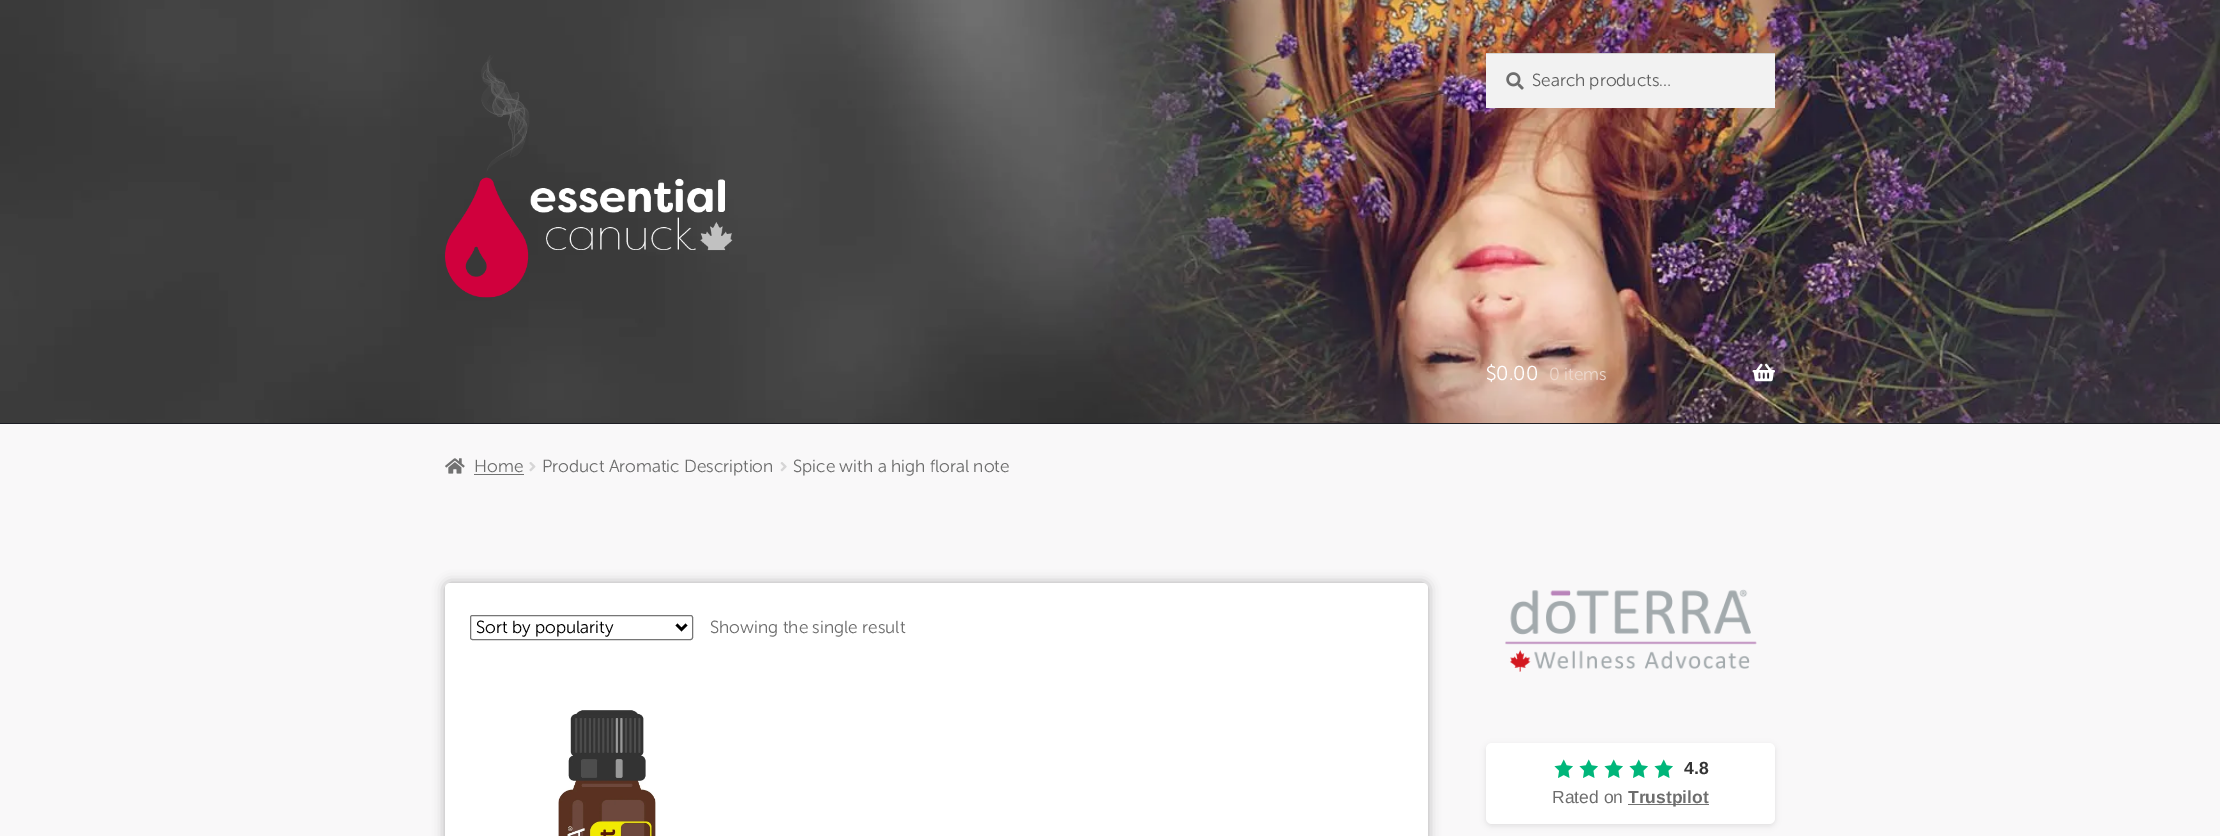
%!PS
<< /PageSize [2220 836] /PageUsesTransparency true >> setpagedevice
/rgb { 3 { 255 div 3 1 roll } repeat setrgbcolor } def
/font { [ exch dup neg 0 0 3 -1 roll 0 0 ] selectfont } def
/text { moveto show } def
/alpha { dup .setfillconstantalpha .setstrokeconstantalpha } def
/roundrect { 5 dict begin { /r /h /w /y /x } { exch def } forall
  x r add y moveto x w add y 2 copy h add r arct x w add y h add x 1 index r arct
  x y h add x y r arct x y 2 copy exch w add exch r arct closepath end } def
/shadow { 12 dict begin { /a /b /q /h /w /y /x } { exch def } forall gsave /was 0 def
  9 -2 -9 { dup b mul 4 div /e exch def 1 sub .425 mul 2.718 exch exp 1 add a .99 .min exch div /now exch def
    1 1 now sub 1 was sub div sub alpha /was now def
    w h .min e 2 mul add 0 gt { x e sub y e sub w e 2 mul add h e 2 mul add
      q e add b .6 mul add w h .min 2 div e add .min 0 .max roundrect fill } if } for grestore end } def
/picture { 5 dict begin { /h /w /y /x /name } { exch def } forall
  gsave x y translate w h scale
  w h 8 [w 0 0 h 0 0] name (r) file false 3 colorimage grestore end } def
0 .pushpdf14devicefilter
0 836 translate 1 -1 scale
4 setmiterlimit
249 248 249 rgb
0 0 2220 836 rectfill
(img_01.rgb) 0 0 2220 423 picture
29 30 36 rgb
0 423 2220 1 rectfill
(img_02.rgb) 445 55 288 243 picture
242 242 242 rgb
1486 54 289 54 rectfill
(img_03.rgb) 1506 72 18 18 picture
212 212 212 rgb
1486 53 289 1 rectfill
(img_04.rgb) 1752 363 23 19 picture
(img_05.rgb) 445 458 20 16 picture
114 114 114 rgb
474 474 50 1 rectfill
(img_06.rgb) 529 462 7 10 picture
(img_07.rgb) 780 462 7 10 picture
0 0 0 rgb
445 583 983 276 5 6 0.3 shadow
255 255 255 rgb
445 583 983 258 5 roundrect fill
118 118 118 rgb
470.5 615.5 222 24 2 roundrect stroke
0 0 0 rgb
2.5 setlinewidth
676.5 624.5 moveto 5 5 rlineto 5 -5 rlineto stroke
(img_08.rgb) 558 710 98 126 picture
(img_09.rgb) 1505 589 252 83 picture
1486 745 289 81 6 3 0.1 shadow
255 255 255 rgb
1486 743 289 81 6 roundrect fill
(img_10.rgb) 1554 759 19 19 picture
(img_10.rgb) 1579 759 19 19 picture
(img_10.rgb) 1604 759 19 19 picture
(img_10.rgb) 1629 759 19 19 picture
(img_10.rgb) 1654 759 19 19 picture
114 114 114 rgb
1628 804 81 1 rectfill
/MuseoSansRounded-Light 17.5 font
97 97 97 rgb
(Search products…) 1532 86 text
/MuseoSansRounded-Light 20 font
255 255 255 rgb
($0.00) 1486 380 text
/MuseoSansRounded-Light 17.5 font
236 215 204 rgb
(0 items) 1549 380 text
109 109 109 rgb
(Home) 474 472 text
(Product Aromatic Description) 542 472 text
(Spice with a high floral note) 793 472 text
0 0 0 rgb
(Sort by popularity) 476 633 text
109 109 109 rgb
(Showing the single result) 710 633 text
/LiberationSans-Bold 17.5 font
51 51 51 rgb
(4.8) 1684 774 text
/LiberationSans-Regular 17.5 font
109 109 109 rgb
(Rated on) 1552 803 text
/LiberationSans-Bold 17.5 font
(Trustpilot) 1628 803 text
.poppdf14devicefilter showpage
